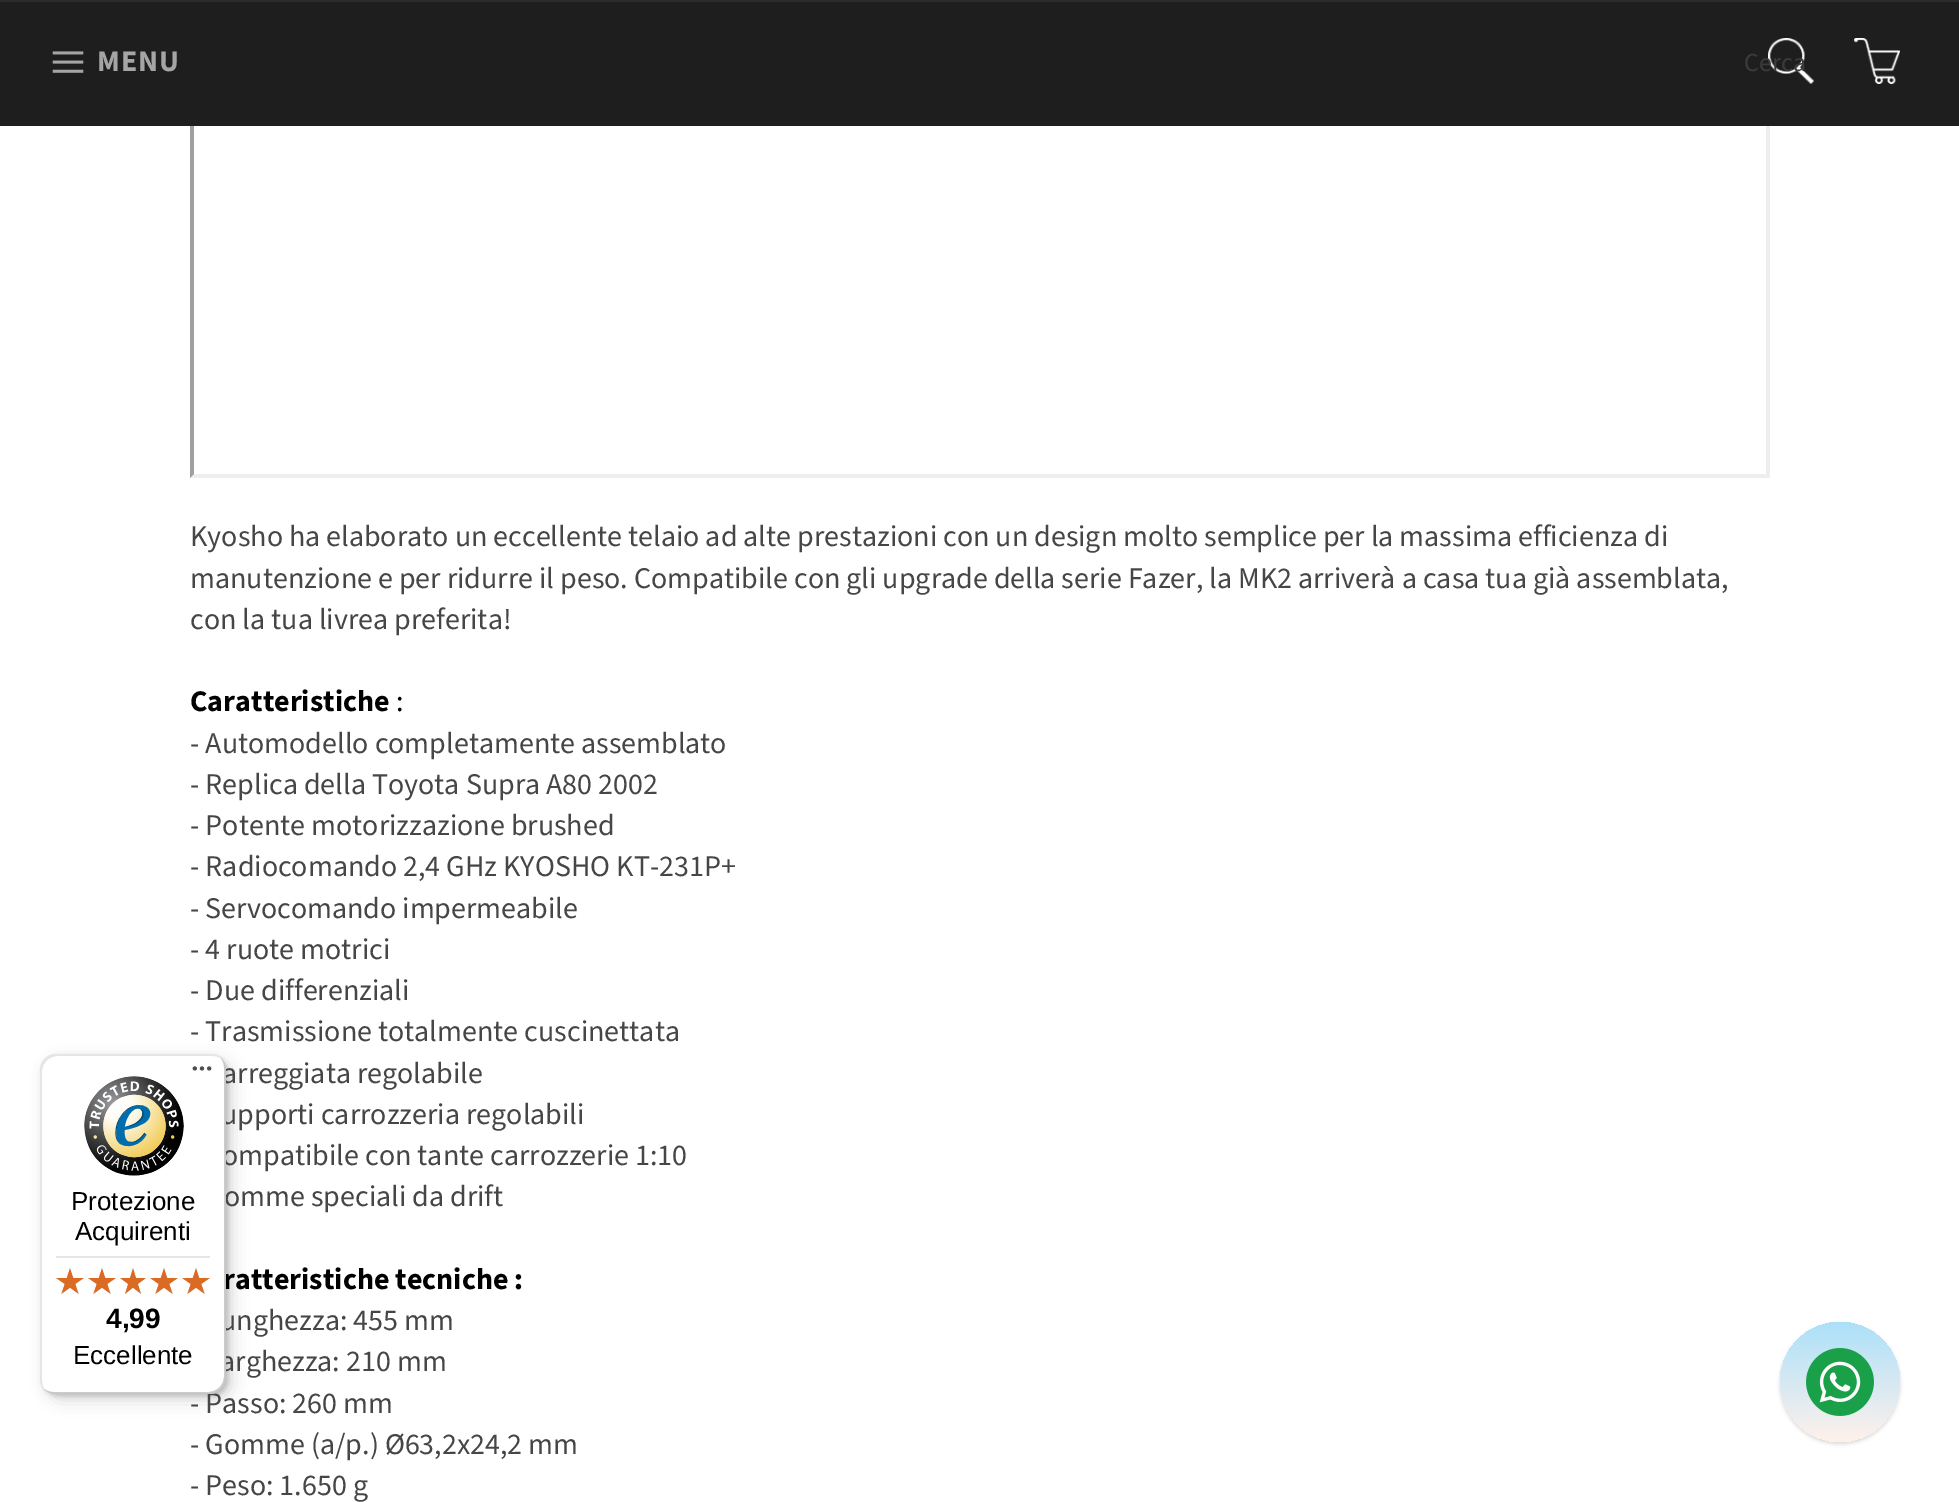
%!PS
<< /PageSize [1959 1502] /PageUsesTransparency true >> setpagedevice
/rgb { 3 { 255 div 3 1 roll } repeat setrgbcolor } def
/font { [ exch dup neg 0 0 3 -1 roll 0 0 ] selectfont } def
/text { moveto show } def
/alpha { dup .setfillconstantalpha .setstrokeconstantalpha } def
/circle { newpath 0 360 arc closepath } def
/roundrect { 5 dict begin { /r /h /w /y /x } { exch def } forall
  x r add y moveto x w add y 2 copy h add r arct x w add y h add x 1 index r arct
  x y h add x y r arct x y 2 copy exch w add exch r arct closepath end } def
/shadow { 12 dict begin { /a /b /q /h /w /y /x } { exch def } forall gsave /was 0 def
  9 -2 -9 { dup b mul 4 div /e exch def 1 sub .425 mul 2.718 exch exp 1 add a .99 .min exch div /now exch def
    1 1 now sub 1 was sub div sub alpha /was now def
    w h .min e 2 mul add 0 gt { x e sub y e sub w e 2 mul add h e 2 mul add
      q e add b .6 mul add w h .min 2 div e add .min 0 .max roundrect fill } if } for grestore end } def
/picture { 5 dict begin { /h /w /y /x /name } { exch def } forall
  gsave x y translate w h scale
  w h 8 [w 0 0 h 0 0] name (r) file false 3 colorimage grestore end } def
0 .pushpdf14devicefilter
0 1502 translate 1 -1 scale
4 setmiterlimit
255 255 255 rgb
0 0 1959 1502 rectfill
238 238 238 rgb
1770 -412 moveto 0 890 rlineto -4 -4 rlineto 0 -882 rlineto closepath fill
1770 478 moveto -1580 0 rlineto 4 -4 rlineto 1572 0 rlineto closepath fill
159 159 159 rgb
190 478 moveto 0 -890 rlineto 4 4 rlineto 0 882 rlineto closepath fill
30 30 30 rgb
0 2 1959 124 rectfill
43 43 43 rgb
0 0 1959 2 rectfill
(img_01.rgb) 52 51 32 22 picture
(img_02.rgb) 1768 38 46 46 picture
(img_03.rgb) 1854 38 46 46 picture
0 0 0 rgb
46 1060 186 340 16 8 0.15 shadow
42 1056 186 340 16 2 0.15 shadow
1780 1324 120 120 60 2 0.15 shadow
gsave 1840 1382 60 circle clip newpath
<< /ShadingType 2 /ColorSpace /DeviceRGB /Coords [1840 1322 1840 1442] /Extend [true true] /Function << /FunctionType 2 /Domain [0 1] /C0 [0.675 0.878 0.976] /C1 [1 0.945 0.922] /N 1 >> >> shfill grestore
(img_10.rgb) 1806 1348 68 68 picture
/SourceSansPro-Bold 30 font
165 165 165 rgb
97 71 moveto 1 0 (MENU) ashow
/SourceSansPro-Regular 26 font
59 59 59 rgb
(Cerca) 1744 71 text
/SourceSansPro-Regular 30 font
70 70 70 rgb
(Kyosho ha elaborato un eccellente telaio ad alte prestazioni con un design molto semplice per la massima efficienza di) 190 546 text
(manutenzione e per ridurre il peso. Compatibile con gli upgrade della serie Fazer, la MK2 arriverà a casa tua già assemblata,) 190 588 text
(con la tua livrea preferita!) 190 629 text
/SourceSansPro-Bold 30 font
0 0 0 rgb
(Caratteristiche) 190 711 text
/SourceSansPro-Regular 30 font
(:) 396 711 text
70 70 70 rgb
(- Automodello completamente assemblato) 190 753 text
(- Replica della Toyota Supra A80 2002) 190 794 text
(- Potente motorizzazione brushed) 190 835 text
(- Radiocomando 2,4 GHz KYOSHO KT-231P+) 190 876 text
(- Servocomando impermeabile) 190 918 text
(- 4 ruote motrici) 190 959 text
(- Due differenziali) 190 1000 text
(- Trasmissione totalmente cuscinettata) 190 1041 text
(arreggiata regolabile) 222 1083 text
(upporti carrozzeria regolabili) 221 1124 text
(ompatibile con tante carrozzerie 1:10) 222 1165 text
(omme speciali da drift) 224 1206 text
/SourceSansPro-Bold 30 font
0 0 0 rgb
(ratteristiche tecniche :) 223 1289 text
/SourceSansPro-Regular 30 font
70 70 70 rgb
(unghezza: 455 mm) 220 1330 text
(arghezza: 210 mm) 220 1371 text
(- Passo: 260 mm) 190 1413 text
255 255 255 rgb
40 1054 186 340 16 roundrect fill
0.1 alpha
0 0 0 rgb
58 1056 moveto 154 0 rlineto 4 0 7 1 10 3 rcurveto -3 -3 -7 -5 -12 -5 rcurveto -154 0 rlineto -9 0 -16 7 -16 16 rcurveto 0 308 rlineto 0 5 2 9 5 12 rcurveto -2 -3 -3 -6 -3 -10 rcurveto 0 -308 rlineto 0 -9 7 -16 16 -16 rcurveto closepath fill
0.2 alpha
44 1389 moveto 3 3 7 5 12 5 rcurveto 154 0 rlineto 9 0 16 -7 16 -16 rcurveto 0 -308 rlineto 0 -5 -2 -9 -5 -12 rcurveto 2 3 3 6 3 10 rcurveto 0 308 rlineto 0 9 -7 16 -16 16 rcurveto -154 0 rlineto -4 0 -7 -1 -10 -3 rcurveto closepath fill
50 50 50 rgb
45 1389 moveto 3 3 7 5 11 5 rcurveto 154 0 rlineto 9 0 16 -7 16 -16 rcurveto 0 -308 rlineto 0 -4 -2 -8 -5 -11 rcurveto 3 3 4 6 4 10 rcurveto 0 308 rlineto 0 9 -7 16 -16 16 rcurveto -154 0 rlineto -4 0 -7 -1 -10 -4 rcurveto closepath fill
0.3 alpha
255 255 255 rgb
45 1389 moveto 3 3 7 5 11 5 rcurveto 154 0 rlineto 9 0 16 -7 16 -16 rcurveto 0 -308 rlineto 0 -4 -2 -8 -5 -11 rcurveto 3 3 4 6 4 10 rcurveto 0 308 rlineto 0 9 -7 16 -16 16 rcurveto -154 0 rlineto -4 0 -7 -1 -10 -4 rcurveto closepath fill
1 alpha
(img_04.rgb) 192 1066 20 5 picture
(img_06.rgb) 182 1268 28 26 picture
(img_08.rgb) 182 1268 28 26 picture
(img_06.rgb) 150 1268 28 26 picture
(img_08.rgb) 150 1268 28 26 picture
(img_07.rgb) 120 1268 26 26 picture
(img_09.rgb) 120 1268 26 26 picture
(img_06.rgb) 88 1268 28 26 picture
(img_08.rgb) 88 1268 28 26 picture
(img_06.rgb) 56 1268 28 26 picture
(img_08.rgb) 56 1268 28 26 picture
/LiberationSans-Regular 26 font
0 0 0 rgb
(Eccellente) 73 1364 text
/LiberationSans-Bold 28 font
(4,99) 106 1328 text
/LiberationSans-Regular 26 font
(Acquirenti) 75 1240 text
(Protezione) 71 1210 text
(img_05.rgb) 84 1076 100 100 picture
229 229 229 rgb
56 1256 154 2 rectfill
/SourceSansPro-Regular 30 font
70 70 70 rgb
(- Gomme \(a/p.\) Ø63,2x24,2 mm) 190 1454 text
(- Peso: 1.650 g) 190 1495 text
.poppdf14devicefilter showpage
